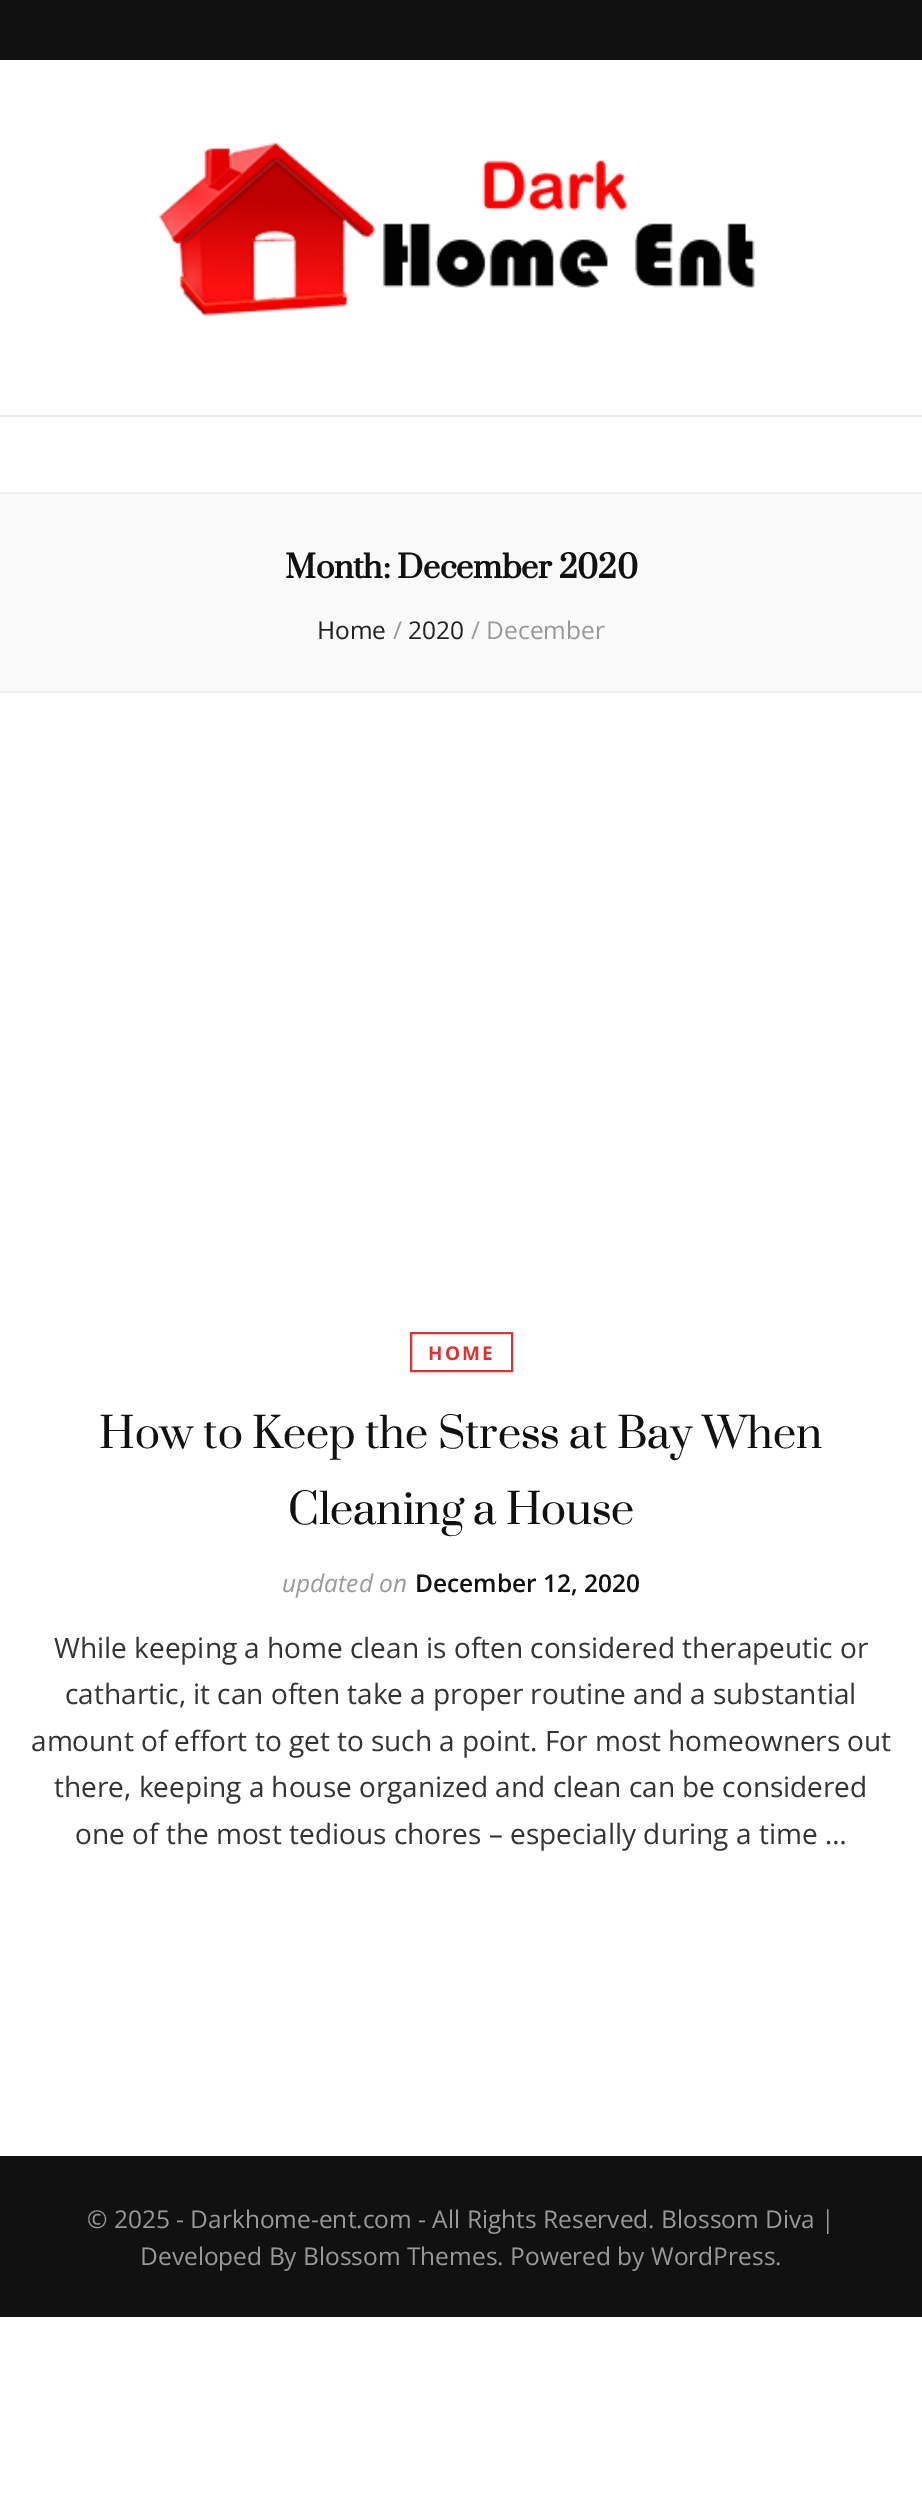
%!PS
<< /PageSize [922 2520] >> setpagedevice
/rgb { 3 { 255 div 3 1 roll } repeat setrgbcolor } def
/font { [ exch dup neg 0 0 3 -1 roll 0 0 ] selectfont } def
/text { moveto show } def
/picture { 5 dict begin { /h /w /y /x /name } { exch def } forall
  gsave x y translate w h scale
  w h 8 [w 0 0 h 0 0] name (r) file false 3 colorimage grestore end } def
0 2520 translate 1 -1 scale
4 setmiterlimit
255 255 255 rgb
0 0 922 2520 rectfill
17 17 17 rgb
0 0 922 60 rectfill
(img_01.rgb) 159 143 596 173 picture
238 238 238 rgb
0 415 922 2 rectfill
0 492 922 2 rectfill
249 249 249 rgb
0 494 922 197 rectfill
238 238 238 rgb
0 691 922 2 rectfill
221 51 51 rgb
2 setlinewidth
411 1333 101 38 rectstroke
17 17 17 rgb
0 2156 922 161 rectfill
/Suranna-Bold 38.5 font
(Month: December 2020) 285 578 text
/OpenSans-Regular 24.5 font
34 34 34 rgb
(Home) 317 639 text
153 153 153 rgb
(/) 393 639 text
34 34 34 rgb
(2020) 408 639 text
153 153 153 rgb
(/ December) 471 639 text
/OpenSans-Bold 19 font
221 51 51 rgb
428 1360 moveto 2 0 (HOME) ashow
/Suranna-Regular 52.5 font
17 17 17 rgb
(How to Keep the Stress at Bay When) 99 1448 text
(Cleaning a House) 288 1524 text
/OpenSans-Italic 24.5 font
153 153 153 rgb
(updated on) 282 1592 text
/OpenSans-SemiBold 24.5 font
17 17 17 rgb
(December 12, 2020) 415 1592 text
/OpenSans-Regular 28 font
51 51 51 rgb
(While keeping a home clean is often considered therapeutic or) 54 1658 text
(cathartic, it can often take a proper routine and a substantial) 65 1704 text
(amount of effort to get to such a point. For most homeowners out) 31 1751 text
(there, keeping a house organized and clean can be considered) 54 1797 text
(one of the most tedious chores – especially during a time …) 75 1844 text
/OpenSans-Regular 24.5 font
153 153 153 rgb
(© 2025 - Darkhome-ent.com - All Rights Reserved. Blossom Diva |) 87 2228 text
(Developed By Blossom Themes. Powered by WordPress.) 140 2265 text
showpage
